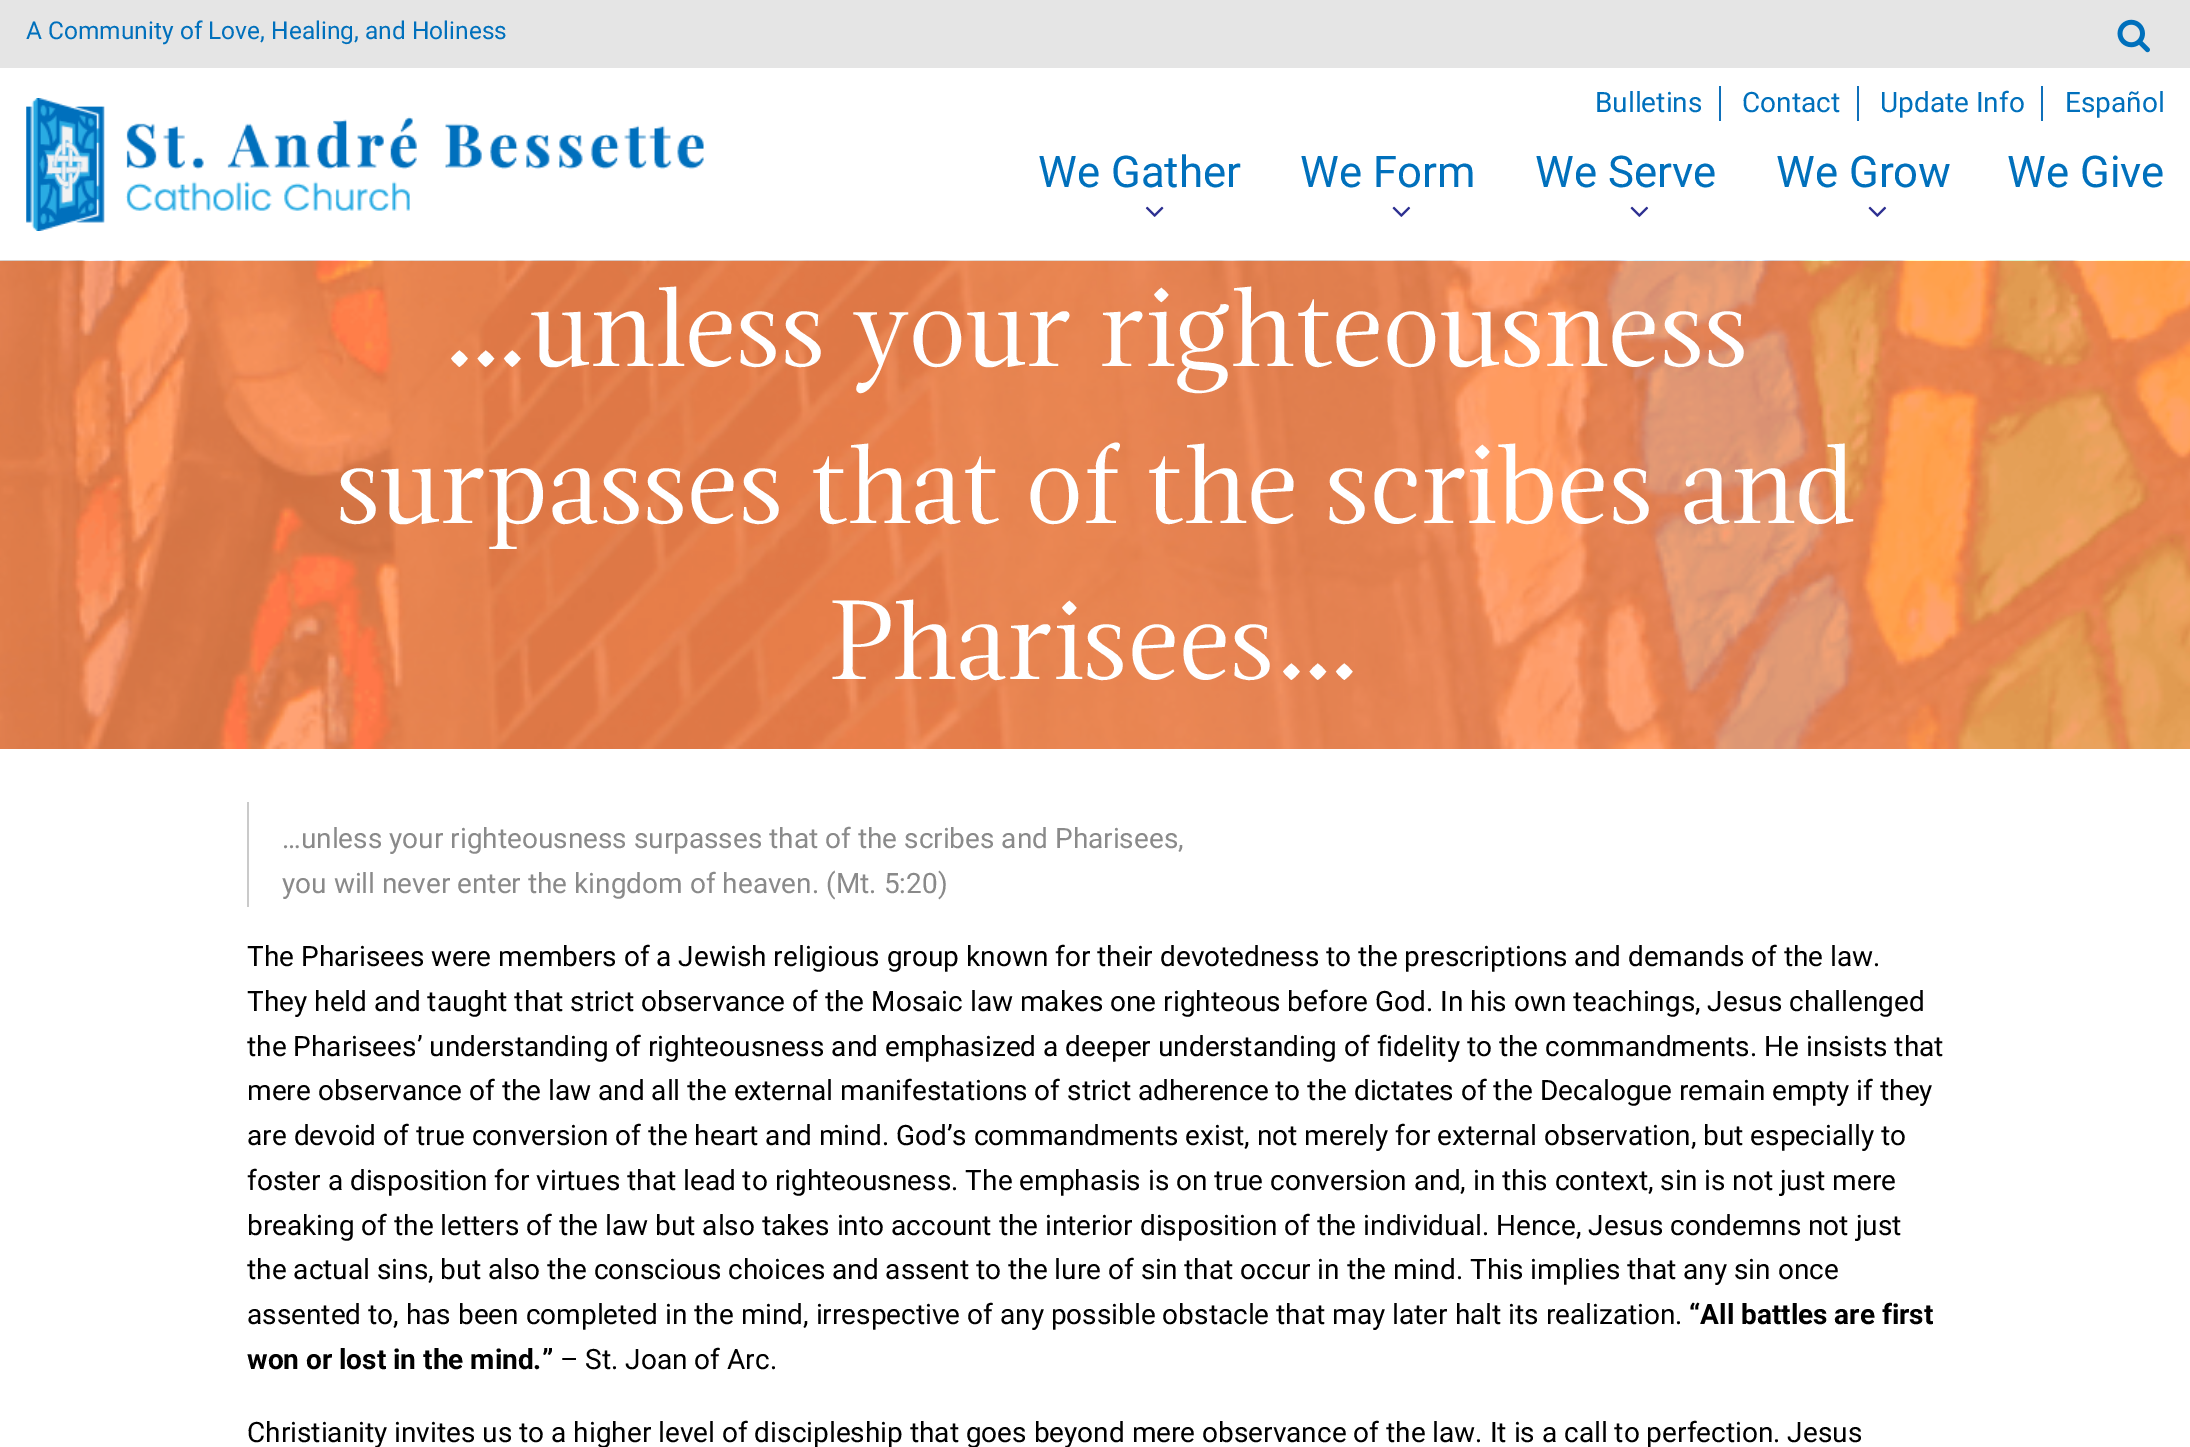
%!PS
<< /PageSize [2190 1447] >> setpagedevice
/rgb { 3 { 255 div 3 1 roll } repeat setrgbcolor } def
/font { [ exch dup neg 0 0 3 -1 roll 0 0 ] selectfont } def
/text { moveto show } def
/picture { 5 dict begin { /h /w /y /x /name } { exch def } forall
  gsave x y translate w h scale
  w h 8 [w 0 0 h 0 0] name (r) file false 3 colorimage grestore end } def
0 1447 translate 1 -1 scale
4 setmiterlimit
255 255 255 rgb
0 0 2190 1447 rectfill
229 229 229 rgb
0 0 2190 68 rectfill
(img_01.rgb) 2117 19 33 34 picture
(img_02.rgb) 26 98 678 133 picture
15 112 186 rgb
1719 86 2 35 rectfill
1857 86 2 35 rectfill
2041 86 2 35 rectfill
(img_03.rgb) 1145 206 19 11 picture
(img_04.rgb) 1392 206 19 11 picture
(img_04.rgb) 1630 206 19 11 picture
(img_05.rgb) 1868 206 19 11 picture
(img_06.rgb) 0 260 2190 489 picture
202 202 202 rgb
247 802 2 105 rectfill
/Roboto-Regular 24.5 font
0 112 188 rgb
(A Community of Love, Healing, and Holiness) 26 39 text
/Roboto-Regular 28 font
(Bulletins) 1595 112 text
(Contact) 1742 112 text
(Update Info) 1880 112 text
(Español) 2065 112 text
/Roboto-Regular 43.75 font
(We Gather) 1038 187 text
(We Form) 1300 187 text
(We Serve) 1535 187 text
(We Grow) 1776 187 text
(We Give) 2007 187 text
/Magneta-Regular 112 font
255 255 255 rgb
(…unless your righteousness) 442 366 text
(surpasses that of the scribes and) 336 523 text
(Pharisees…) 828 679 text
/Roboto-Regular 28 font
138 138 138 rgb
(…unless your righteousness surpasses that of the scribes and Pharisees,) 282 848 text
(you will never enter the kingdom of heaven. \(Mt. 5:20\)) 282 893 text
0 0 0 rgb
(The Pharisees were members of a Jewish religious group known for their devotedness to the prescriptions and demands of the law.) 247 966 text
(They held and taught that strict observance of the Mosaic law makes one righteous before God. In his own teachings, Jesus challenged) 247 1011 text
(the Pharisees’ understanding of righteousness and emphasized a deeper understanding of fidelity to the commandments. He insists that) 247 1056 text
(mere observance of the law and all the external manifestations of strict adherence to the dictates of the Decalogue remain empty if they) 247 1100 text
(are devoid of true conversion of the heart and mind. God’s commandments exist, not merely for external observation, but especially to) 247 1145 text
(foster a disposition for virtues that lead to righteousness. The emphasis is on true conversion and, in this context, sin is not just mere) 247 1190 text
(breaking of the letters of the law but also takes into account the interior disposition of the individual. Hence, Jesus condemns not just) 247 1235 text
(the actual sins, but also the conscious choices and assent to the lure of sin that occur in the mind. This implies that any sin once) 247 1279 text
(assented to, has been completed in the mind, irrespective of any possible obstacle that may later halt its realization.) 247 1324 text
/Roboto-Bold 28 font
(“All battles are first) 1689 1324 text
(won or lost in the mind.”) 247 1369 text
/Roboto-Regular 28 font
(– St. Joan of Arc.) 560 1369 text
(Christianity invites us to a higher level of discipleship that goes beyond mere observance of the law. It is a call to perfection. Jesus) 247 1442 text
showpage
